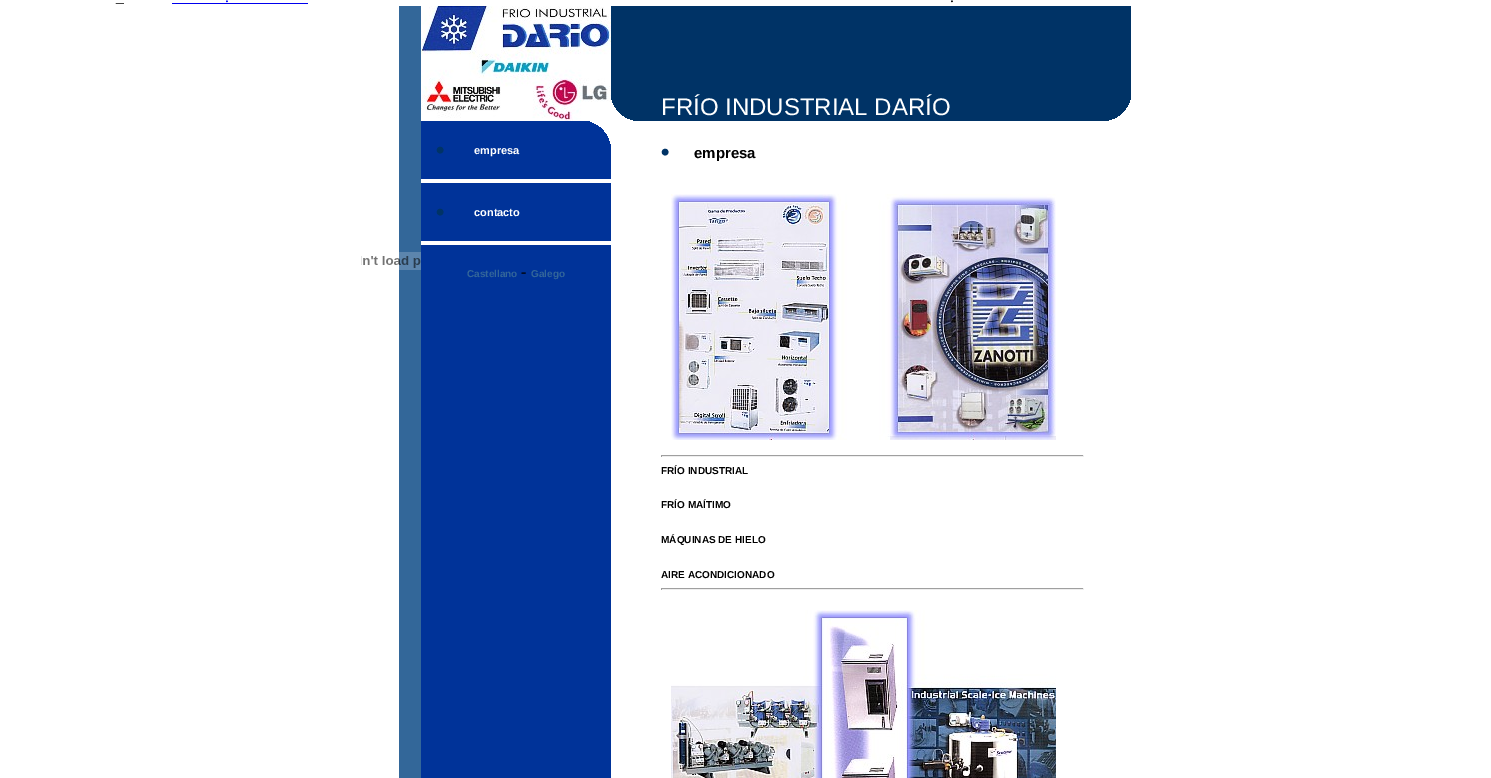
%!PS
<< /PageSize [1491 778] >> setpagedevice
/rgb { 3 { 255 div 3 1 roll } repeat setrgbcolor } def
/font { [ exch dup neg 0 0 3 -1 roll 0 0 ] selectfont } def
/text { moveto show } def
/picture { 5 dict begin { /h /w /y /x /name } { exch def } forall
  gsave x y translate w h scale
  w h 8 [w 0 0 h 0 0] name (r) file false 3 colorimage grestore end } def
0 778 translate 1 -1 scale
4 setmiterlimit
255 255 255 rgb
0 0 1491 778 rectfill
0 0 238 rgb
172 3 136 1 rectfill
51 103 153 rgb
399 6 22 772 rectfill
(img_01.rgb) 361 252 60 18 picture
(img_02.rgb) 421 6 190 115 picture
0 51 102 rgb
611 6 520 115 rectfill
(img_03.rgb) 611 100 22 21 picture
(img_04.rgb) 1109 100 22 21 picture
0 51 153 rgb
421 121 190 657 rectfill
(img_05.rgb) 590 121 21 23 picture
255 255 255 rgb
421 179 190 4 rectfill
421 241 190 4 rectfill
(img_06.rgb) 671 194 385 246 picture
159 159 159 rgb
661 455 423 1 rectfill
238 238 238 rgb
1083 455 1 2 rectfill
661 456 423 1 rectfill
159 159 159 rgb
661 455 1 2 rectfill
661 588 423 1 rectfill
238 238 238 rgb
1083 588 1 2 rectfill
661 589 423 1 rectfill
159 159 159 rgb
661 588 1 2 rectfill
(img_07.rgb) 671 610 385 168 picture
/LiberationSerif-Regular 16 font
0 0 238 rgb
(.) 225 2 text
0 0 0 rgb
(.) 950 2 text
(_) 116 2 text
/LiberationSans-Regular 24 font
255 255 255 rgb
(FRÍO INDUSTRIAL DARÍO) 661 115 text
/LiberationSans-Bold 24 font
0 51 102 rgb
(•) 436 158 text
/LiberationSans-Bold 11 font
255 255 255 rgb
(empresa) 474 154 text
/LiberationSans-Bold 24 font
0 51 102 rgb
(•) 436 220 text
/LiberationSans-Bold 11 font
255 255 255 rgb
(contacto) 474 216 text
/LiberationSans-Bold 10 font
51 102 153 rgb
(Castellano) 467 277 text
/LiberationSerif-Regular 16 font
0 0 0 rgb
(-) 521 277 text
/LiberationSans-Bold 10 font
51 102 153 rgb
(Galego) 531 277 text
/LiberationSans-Bold 24 font
0 51 102 rgb
(•) 661 160 text
/LiberationSans-Bold 15 font
0 0 0 rgb
(empresa) 694 158 text
/LiberationSans-Bold 10 font
(FRÍO INDUSTRIAL) 661 474 text
(FRÍO MAÍTIMO) 661 508 text
(MÁQUINAS DE HIELO) 661 543 text
(AIRE ACONDICIONADO) 661 578 text
showpage
